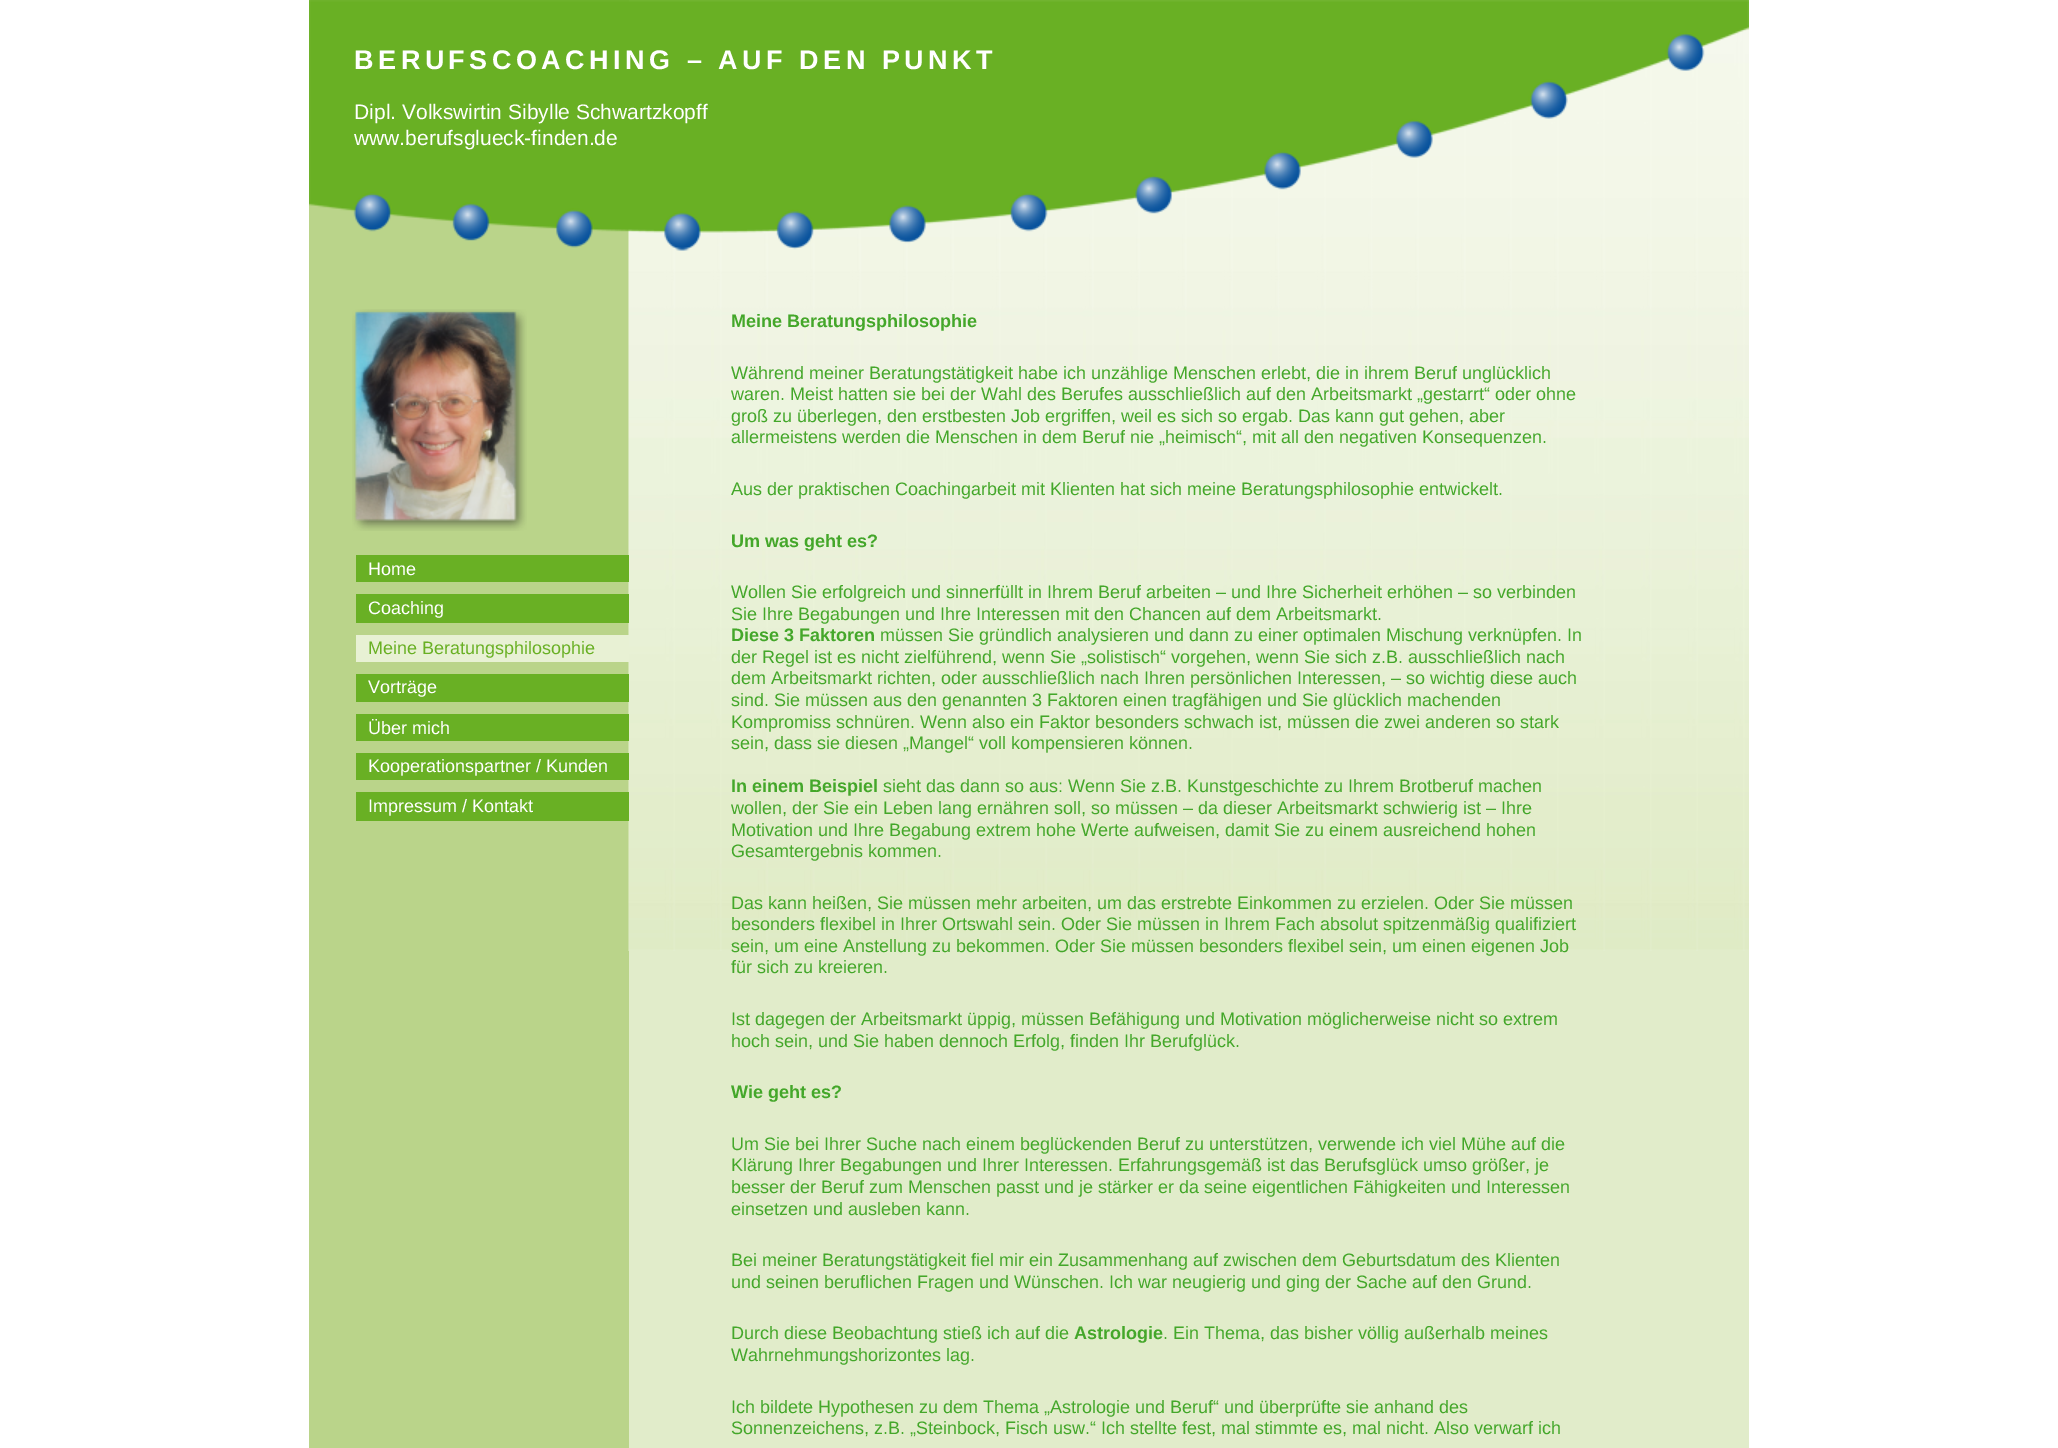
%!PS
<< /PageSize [2058 1448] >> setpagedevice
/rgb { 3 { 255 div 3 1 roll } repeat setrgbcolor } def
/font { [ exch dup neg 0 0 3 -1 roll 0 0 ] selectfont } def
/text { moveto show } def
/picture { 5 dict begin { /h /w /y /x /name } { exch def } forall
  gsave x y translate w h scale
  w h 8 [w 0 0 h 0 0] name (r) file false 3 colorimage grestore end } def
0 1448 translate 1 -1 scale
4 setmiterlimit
255 255 255 rgb
0 0 2058 1448 rectfill
186 212 138 rgb
309 0 320 1448 rectfill
225 236 202 rgb
629 0 1120 1448 rectfill
(img_03.rgb) 628 30 1121 921 picture
(img_01.rgb) 309 0 1440 251 picture
(img_02.rgb) 352 309 175 222 picture
105 176 36 rgb
356 555 273 27 rectfill
356 594 273 29 rectfill
232 241 212 rgb
356 635 273 27 rectfill
105 176 36 rgb
356 674 273 28 rectfill
356 714 273 27 rectfill
356 753 273 27 rectfill
356 792 273 29 rectfill
/LiberationSans-Bold 27 font
255 255 255 rgb
354 69 moveto 4.5 0 (BERUFSCOACHING – AUF DEN PUNKT) ashow
/LiberationSans-Regular 21 font
(Dipl. Volkswirtin Sibylle Schwartzkopff) 354 119 text
(www.berufsglueck-finden.de) 354 145 text
/LiberationSans-Regular 18 font
(Home) 368 575 text
(Coaching) 368 614 text
105 176 36 rgb
(Meine Beratungsphilosophie) 368 654 text
255 255 255 rgb
(Vorträge) 368 693 text
(Über mich) 368 734 text
(Kooperationspartner / Kunden) 368 772 text
(Impressum / Kontakt) 368 812 text
/LiberationSans-Bold 18 font
68 167 42 rgb
(Meine Beratungsphilosophie) 731 327 text
/LiberationSans-Regular 18 font
(Während meiner Beratungstätigkeit habe ich unzählige Menschen erlebt, die in ihrem Beruf unglücklich) 731 379 text
(waren. Meist hatten sie bei der Wahl des Berufes ausschließlich auf den Arbeitsmarkt „gestarrt“ oder ohne) 731 400 text
(groß zu überlegen, den erstbesten Job ergriffen, weil es sich so ergab. Das kann gut gehen, aber) 731 422 text
(allermeistens werden die Menschen in dem Beruf nie „heimisch“, mit all den negativen Konsequenzen.) 731 443 text
(Aus der praktischen Coachingarbeit mit Klienten hat sich meine Beratungsphilosophie entwickelt.) 731 495 text
/LiberationSans-Bold 18 font
(Um was geht es?) 731 547 text
/LiberationSans-Regular 18 font
(Wollen Sie erfolgreich und sinnerfüllt in Ihrem Beruf arbeiten – und Ihre Sicherheit erhöhen – so verbinden) 731 598 text
(Sie Ihre Begabungen und Ihre Interessen mit den Chancen auf dem Arbeitsmarkt.) 731 620 text
/LiberationSans-Bold 18 font
(Diese 3 Faktoren) 731 641 text
/LiberationSans-Regular 18 font
(müssen Sie gründlich analysieren und dann zu einer optimalen Mischung verknüpfen. In) 880 641 text
(der Regel ist es nicht zielführend, wenn Sie „solistisch“ vorgehen, wenn Sie sich z.B. ausschließlich nach) 731 663 text
(dem Arbeitsmarkt richten, oder ausschließlich nach Ihren persönlichen Interessen, – so wichtig diese auch) 731 684 text
(sind. Sie müssen aus den genannten 3 Faktoren einen tragfähigen und Sie glücklich machenden) 731 706 text
(Kompromiss schnüren. Wenn also ein Faktor besonders schwach ist, müssen die zwei anderen so stark) 731 728 text
(sein, dass sie diesen „Mangel“ voll kompensieren können.) 731 749 text
/LiberationSans-Bold 18 font
(In einem Beispiel) 731 792 text
/LiberationSans-Regular 18 font
(sieht das dann so aus: Wenn Sie z.B. Kunstgeschichte zu Ihrem Brotberuf machen) 883 792 text
(wollen, der Sie ein Leben lang ernähren soll, so müssen – da dieser Arbeitsmarkt schwierig ist – Ihre) 731 814 text
(Motivation und Ihre Begabung extrem hohe Werte aufweisen, damit Sie zu einem ausreichend hohen) 731 836 text
(Gesamtergebnis kommen.) 731 857 text
(Das kann heißen, Sie müssen mehr arbeiten, um das erstrebte Einkommen zu erzielen. Oder Sie müssen) 731 909 text
(besonders flexibel in Ihrer Ortswahl sein. Oder Sie müssen in Ihrem Fach absolut spitzenmäßig qualifiziert) 731 930 text
(sein, um eine Anstellung zu bekommen. Oder Sie müssen besonders flexibel sein, um einen eigenen Job) 731 952 text
(für sich zu kreieren.) 731 973 text
(Ist dagegen der Arbeitsmarkt üppig, müssen Befähigung und Motivation möglicherweise nicht so extrem) 731 1025 text
(hoch sein, und Sie haben dennoch Erfolg, finden Ihr Berufglück.) 731 1047 text
/LiberationSans-Bold 18 font
(Wie geht es?) 731 1098 text
/LiberationSans-Regular 18 font
(Um Sie bei Ihrer Suche nach einem beglückenden Beruf zu unterstützen, verwende ich viel Mühe auf die) 731 1150 text
(Klärung Ihrer Begabungen und Ihrer Interessen. Erfahrungsgemäß ist das Berufsglück umso größer, je) 731 1171 text
(besser der Beruf zum Menschen passt und je stärker er da seine eigentlichen Fähigkeiten und Interessen) 731 1193 text
(einsetzen und ausleben kann.) 731 1215 text
(Bei meiner Beratungstätigkeit fiel mir ein Zusammenhang auf zwischen dem Geburtsdatum des Klienten) 731 1266 text
(und seinen beruflichen Fragen und Wünschen. Ich war neugierig und ging der Sache auf den Grund.) 731 1288 text
(Durch diese Beobachtung stieß ich auf die) 731 1339 text
/LiberationSans-Bold 18 font
(Astrologie) 1074 1339 text
/LiberationSans-Regular 18 font
(. Ein Thema, das bisher völlig außerhalb meines) 1163 1339 text
(Wahrnehmungshorizontes lag.) 731 1361 text
(Ich bildete Hypothesen zu dem Thema „Astrologie und Beruf“ und überprüfte sie anhand des) 731 1413 text
(Sonnenzeichens, z.B. „Steinbock, Fisch usw.“ Ich stellte fest, mal stimmte es, mal nicht. Also verwarf ich) 731 1434 text
showpage
